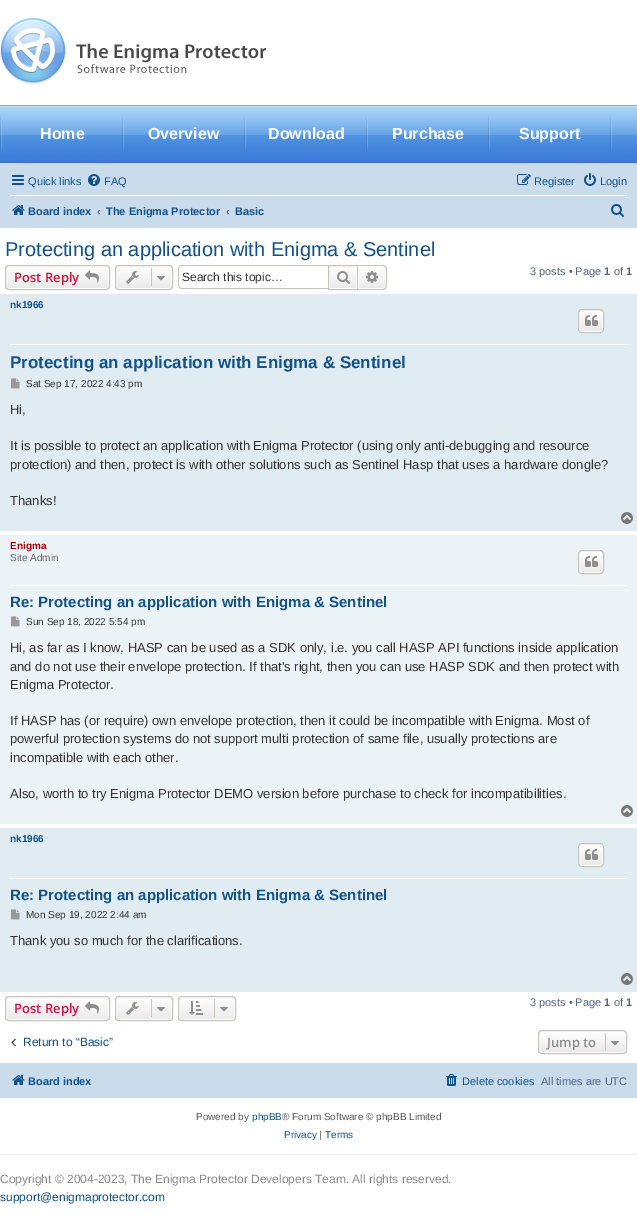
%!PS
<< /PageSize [637 1217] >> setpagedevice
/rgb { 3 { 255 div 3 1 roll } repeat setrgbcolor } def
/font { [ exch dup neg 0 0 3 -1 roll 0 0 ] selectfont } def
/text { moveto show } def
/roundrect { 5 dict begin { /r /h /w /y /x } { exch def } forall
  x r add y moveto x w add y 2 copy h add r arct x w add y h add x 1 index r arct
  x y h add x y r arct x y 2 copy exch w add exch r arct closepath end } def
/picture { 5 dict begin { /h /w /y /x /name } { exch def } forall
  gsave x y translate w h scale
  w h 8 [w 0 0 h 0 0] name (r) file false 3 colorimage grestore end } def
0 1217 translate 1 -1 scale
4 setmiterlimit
255 255 255 rgb
0 0 637 1217 rectfill
(img_01.rgb) 0 18 266 66 picture
(img_02.rgb) 0 106 637 56 picture
106 178 238 rgb
0 105 637 1 rectfill
59 115 199 rgb
0 162 637 1 rectfill
(img_03.rgb) 0 116 2 38 picture
(img_04.rgb) 122 116 1 36 picture
(img_05.rgb) 123 116 122 37 picture
(img_05.rgb) 245 116 122 37 picture
(img_05.rgb) 367 116 122 37 picture
(img_05.rgb) 489 116 122 37 picture
(img_06.rgb) 611 118 1 35 picture
202 220 235 rgb
0 163 637 65 rectfill
(img_07.rgb) 12 175 12 10 picture
(img_08.rgb) 88 174 12 12 picture
(img_09.rgb) 517 174 14 11 picture
(img_10.rgb) 584 173 12 13 picture
255 255 255 rgb
10 195 617 1 rectfill
(img_11.rgb) 12 205 13 10 picture
(img_12.rgb) 611 204 13 13 picture
gsave
5 265 105 25 4 roundrect clip newpath
gsave 5 266 moveto 105 0 rlineto 0 23 rlineto -105 0 rlineto closepath clip newpath
<< /ShadingType 2 /ColorSpace /DeviceRGB /Coords [58 266 58 289] /Extend [true true] /Function << /FunctionType 2 /Domain [0 1] /C0 [1 1 1] /C1 [0.914 0.914 0.914] /N 1 >> >> shfill grestore
grestore
6.5 266.5 102 22 2.5 roundrect stroke
199 195 191 rgb
5.5 265.5 104 24 3.5 roundrect stroke
(img_13.rgb) 85 270 14 13 picture
gsave
115 265 58 25 4 roundrect clip newpath
gsave 115 266 moveto 58 0 rlineto 0 23 rlineto -58 0 rlineto closepath clip newpath
<< /ShadingType 2 /ColorSpace /DeviceRGB /Coords [144 266 144 289] /Extend [true true] /Function << /FunctionType 2 /Domain [0 1] /C0 [1 1 1] /C1 [0.914 0.914 0.914] /N 1 >> >> shfill grestore
grestore
255 255 255 rgb
116.5 266.5 55 22 2.5 roundrect stroke
199 195 191 rgb
115.5 265.5 57 24 3.5 roundrect stroke
(img_14.rgb) 126 271 13 13 picture
151 268 1 18 rectfill
(img_15.rgb) 157 276 8 5 picture
182 265 moveto 146 0 rlineto 0 24 rlineto -146 0 rlineto -2 0 -4 -2 -4 -4 rcurveto 0 -16 rlineto 0 -2 2 -4 4 -4 rcurveto closepath 182 266 moveto 146 0 rlineto 0 22 rlineto -146 0 rlineto -2 0 -3 -1 -3 -3 rcurveto 0 -16 rlineto 0 -2 1 -3 3 -3 rcurveto closepath eofill
gsave 330 269 moveto 26 0 rlineto 0 19 rlineto -26 0 rlineto closepath clip newpath
<< /ShadingType 2 /ColorSpace /DeviceRGB /Coords [343 266 343 289] /Extend [true true] /Function << /FunctionType 2 /Domain [0 1] /C0 [1 1 1] /C1 [0.914 0.914 0.914] /N 1 >> >> shfill grestore
328.5 265.5 29 24 rectstroke
(img_16.rgb) 337 271 13 13 picture
gsave 358.5 266.5 moveto 24.5 0 rlineto 1.5 0 2.5 1 2.5 2.5 rcurveto 0 17 rlineto 0 1.5 -1 2.5 -2.5 2.5 rcurveto -24.5 0 rlineto closepath clip newpath
<< /ShadingType 2 /ColorSpace /DeviceRGB /Coords [372 266 372 289] /Extend [true true] /Function << /FunctionType 2 /Domain [0 1] /C0 [1 1 1] /C1 [0.914 0.914 0.914] /N 1 >> >> shfill grestore
255 255 255 rgb
358.5 266.5 moveto 24.5 0 rlineto 1.5 0 2.5 1 2.5 2.5 rcurveto 0 17 rlineto 0 1.5 -1 2.5 -2.5 2.5 rcurveto -24.5 0 rlineto closepath stroke
199 195 191 rgb
358 265 moveto 25 0 rlineto 2 0 4 2 4 4 rcurveto 0 17 rlineto 0 2 -2 4 -4 4 rcurveto -25 0 rlineto closepath 358 266 moveto 25 0 rlineto 1.5 0 3 1.5 3 3 rcurveto 0 17 rlineto 0 1.5 -1.5 3 -3 3 rcurveto -25 0 rlineto closepath eofill
(img_17.rgb) 366 271 12 12 picture
225 235 242 rgb
0 294 637 237 rectfill
255 255 255 rgb
10 344 617 1 rectfill
gsave
578 309 26 24 4 roundrect clip newpath
gsave 578 310 moveto 26 0 rlineto 0 22 rlineto -26 0 rlineto closepath clip newpath
<< /ShadingType 2 /ColorSpace /DeviceRGB /Coords [591 310 591 332] /Extend [true true] /Function << /FunctionType 2 /Domain [0 1] /C0 [1 1 1] /C1 [0.914 0.914 0.914] /N 1 >> >> shfill grestore
grestore
579.5 310.5 23 21 2.5 roundrect stroke
199 195 191 rgb
578.5 309.5 25 23 3.5 roundrect stroke
(img_18.rgb) 585 315 13 11 picture
(img_19.rgb) 11 378 9 11 picture
(img_20.rgb) 621 512 12 12 picture
236 243 247 rgb
0 535 637 289 rectfill
255 255 255 rgb
10 585 617 1 rectfill
gsave
578 550 26 24 4 roundrect clip newpath
gsave 578 551 moveto 26 0 rlineto 0 22 rlineto -26 0 rlineto closepath clip newpath
<< /ShadingType 2 /ColorSpace /DeviceRGB /Coords [591 551 591 573] /Extend [true true] /Function << /FunctionType 2 /Domain [0 1] /C0 [1 1 1] /C1 [0.914 0.914 0.914] /N 1 >> >> shfill grestore
grestore
579.5 551.5 23 21 2.5 roundrect stroke
199 195 191 rgb
578.5 550.5 25 23 3.5 roundrect stroke
(img_18.rgb) 585 556 13 11 picture
(img_21.rgb) 11 616 9 11 picture
(img_22.rgb) 621 805 12 12 picture
225 235 242 rgb
0 828 637 164 rectfill
255 255 255 rgb
10 878 617 1 rectfill
gsave
578 843 26 24 4 roundrect clip newpath
gsave 578 844 moveto 26 0 rlineto 0 22 rlineto -26 0 rlineto closepath clip newpath
<< /ShadingType 2 /ColorSpace /DeviceRGB /Coords [591 844 591 866] /Extend [true true] /Function << /FunctionType 2 /Domain [0 1] /C0 [1 1 1] /C1 [0.914 0.914 0.914] /N 1 >> >> shfill grestore
grestore
579.5 844.5 23 21 2.5 roundrect stroke
199 195 191 rgb
578.5 843.5 25 23 3.5 roundrect stroke
(img_18.rgb) 585 849 13 11 picture
(img_19.rgb) 11 909 9 11 picture
(img_20.rgb) 621 973 12 12 picture
gsave
5 996 105 25 4 roundrect clip newpath
gsave 5 997 moveto 105 0 rlineto 0 23 rlineto -105 0 rlineto closepath clip newpath
<< /ShadingType 2 /ColorSpace /DeviceRGB /Coords [58 997 58 1020] /Extend [true true] /Function << /FunctionType 2 /Domain [0 1] /C0 [1 1 1] /C1 [0.914 0.914 0.914] /N 1 >> >> shfill grestore
grestore
255 255 255 rgb
6.5 997.5 102 22 2.5 roundrect stroke
199 195 191 rgb
5.5 996.5 104 24 3.5 roundrect stroke
(img_13.rgb) 85 1001 14 13 picture
gsave
115 996 58 25 4 roundrect clip newpath
gsave 115 997 moveto 58 0 rlineto 0 23 rlineto -58 0 rlineto closepath clip newpath
<< /ShadingType 2 /ColorSpace /DeviceRGB /Coords [144 997 144 1020] /Extend [true true] /Function << /FunctionType 2 /Domain [0 1] /C0 [1 1 1] /C1 [0.914 0.914 0.914] /N 1 >> >> shfill grestore
grestore
255 255 255 rgb
116.5 997.5 55 22 2.5 roundrect stroke
199 195 191 rgb
115.5 996.5 57 24 3.5 roundrect stroke
(img_14.rgb) 126 1002 13 13 picture
151 999 1 18 rectfill
(img_15.rgb) 157 1007 8 5 picture
gsave
178 996 58 25 4 roundrect clip newpath
gsave 178 997 moveto 58 0 rlineto 0 23 rlineto -58 0 rlineto closepath clip newpath
<< /ShadingType 2 /ColorSpace /DeviceRGB /Coords [207 997 207 1020] /Extend [true true] /Function << /FunctionType 2 /Domain [0 1] /C0 [1 1 1] /C1 [0.914 0.914 0.914] /N 1 >> >> shfill grestore
grestore
255 255 255 rgb
179.5 997.5 55 22 2.5 roundrect stroke
199 195 191 rgb
178.5 996.5 57 24 3.5 roundrect stroke
(img_23.rgb) 189 1001 14 14 picture
214 999 1 18 rectfill
(img_15.rgb) 220 1007 8 5 picture
(img_24.rgb) 11 1038 5 9 picture
gsave
538 1030 89 24 4 roundrect clip newpath
gsave 538 1031 moveto 89 0 rlineto 0 22 rlineto -89 0 rlineto closepath clip newpath
<< /ShadingType 2 /ColorSpace /DeviceRGB /Coords [583 1031 583 1053] /Extend [true true] /Function << /FunctionType 2 /Domain [0 1] /C0 [1 1 1] /C1 [0.914 0.914 0.914] /N 1 >> >> shfill grestore
grestore
255 255 255 rgb
539.5 1031.5 86 21 2.5 roundrect stroke
199 195 191 rgb
538.5 1030.5 88 23 3.5 roundrect stroke
605 1033 1 18 rectfill
(img_15.rgb) 611 1041 8 5 picture
202 220 235 rgb
0 1063 637 35 rectfill
(img_11.rgb) 12 1075 13 10 picture
(img_25.rgb) 446 1074 11 12 picture
238 238 238 rgb
0 1154 637 1 rectfill
/LiberationSans-Bold 16 font
255 255 255 rgb
(Home) 40 139 text
(Overview) 148 139 text
(Download) 268 139 text
(Purchase) 392 139 text
(Support) 519 139 text
/LiberationSans-Regular 11 font
16 82 137 rgb
(Quick links) 28 185 text
(FAQ) 104 185 text
(Register) 534 185 text
(Login) 600 185 text
/LiberationSans-Bold 11 font
(Board index) 28 215 text
83 100 130 rgb
(‹) 97 215 text
16 82 137 rgb
(The Enigma Protector) 106 215 text
83 100 130 rgb
(‹) 226 215 text
16 82 137 rgb
(Basic) 235 215 text
/LiberationSans-Regular 20 font
(Protecting an application with Enigma & Sentinel) 5 256 text
/OpenSans-SemiBold 13 font
211 17 65 rgb
(Post Reply) 14 282 text
/LiberationSans-Regular 12 font
51 51 51 rgb
(Search this topic…) 182 281 text
/LiberationSans-Regular 11 font
83 100 130 rgb
(3 posts • Page) 530 275 text
/LiberationSans-Bold 11 font
(1) 604 275 text
/LiberationSans-Regular 11 font
(of) 614 275 text
/LiberationSans-Bold 11 font
(1) 626 275 text
/LiberationSans-Bold 10 font
16 82 137 rgb
(nk1966) 10 308 text
/LiberationSans-Bold 17 font
(Protecting an application with Enigma & Sentinel) 10 368 text
/LiberationSans-Regular 10 font
51 51 51 rgb
(Sat Sep 17, 2022 4:43 pm) 26 387 text
/LiberationSans-Regular 13 font
(Hi,) 10 414 text
(It is possible to protect an application with Enigma Protector \(using only anti-debugging and resource) 10 450 text
(protection\) and then, protect is with other solutions such as Sentinel Hasp that uses a hardware dongle?) 10 469 text
(Thanks!) 10 505 text
/LiberationSans-Bold 10 font
170 0 0 rgb
(Enigma) 10 549 text
/LiberationSans-Regular 10 font
102 102 102 rgb
(Site Admin) 10 561 text
/LiberationSans-Bold 15 font
16 82 137 rgb
(Re: Protecting an application with Enigma & Sentinel) 10 607 text
/LiberationSans-Regular 10 font
51 51 51 rgb
(Sun Sep 18, 2022 5:54 pm) 26 625 text
/LiberationSans-Regular 13 font
(Hi, as far as I know, HASP can be used as a SDK only, i.e. you call HASP API functions inside application) 10 652 text
(and do not use their envelope protection. If that's right, then you can use HASP SDK and then protect with) 10 671 text
(Enigma Protector.) 10 689 text
(If HASP has \(or require\) own envelope protection, then it could be incompatible with Enigma. Most of) 10 725 text
(powerful protection systems do not support multi protection of same file, usually protections are) 10 743 text
(incompatible with each other.) 10 762 text
(Also, worth to try Enigma Protector DEMO version before purchase to check for incompatibilities.) 10 798 text
/LiberationSans-Bold 10 font
16 82 137 rgb
(nk1966) 10 842 text
/LiberationSans-Bold 15 font
(Re: Protecting an application with Enigma & Sentinel) 10 900 text
/LiberationSans-Regular 10 font
51 51 51 rgb
(Mon Sep 19, 2022 2:44 am) 26 918 text
/LiberationSans-Regular 13 font
(Thank you so much for the clarifications.) 10 945 text
/OpenSans-SemiBold 13 font
211 17 65 rgb
(Post Reply) 14 1013 text
/LiberationSans-Regular 11 font
83 100 130 rgb
(3 posts • Page) 530 1006 text
/LiberationSans-Bold 11 font
(1) 604 1006 text
/LiberationSans-Regular 11 font
(of) 614 1006 text
/LiberationSans-Bold 11 font
(1) 626 1006 text
/LiberationSans-Regular 12 font
16 82 137 rgb
(Return to “Basic”) 23 1046 text
/OpenSans-SemiBold 13 font
143 143 143 rgb
(Jump to) 547 1047 text
/LiberationSans-Bold 11 font
16 82 137 rgb
(Board index) 28 1085 text
/LiberationSans-Regular 11 font
(Delete cookies) 462 1085 text
83 100 130 rgb
(All times are UTC) 541 1085 text
/LiberationSans-Regular 10 font
85 85 85 rgb
(Powered by) 196 1120 text
16 82 137 rgb
(phpBB) 252 1120 text
85 85 85 rgb
(® Forum Software © phpBB Limited) 282 1120 text
16 82 137 rgb
(Privacy) 284 1138 text
85 85 85 rgb
(|) 319 1138 text
16 82 137 rgb
(Terms) 325 1138 text
/LiberationSans-Regular 12 font
137 137 137 rgb
(Copyright © 2004-2023, The Enigma Protector Developers Team. All rights reserved.) 0 1183 text
16 82 137 rgb
(support@enigmaprotector.com) 0 1201 text
showpage
